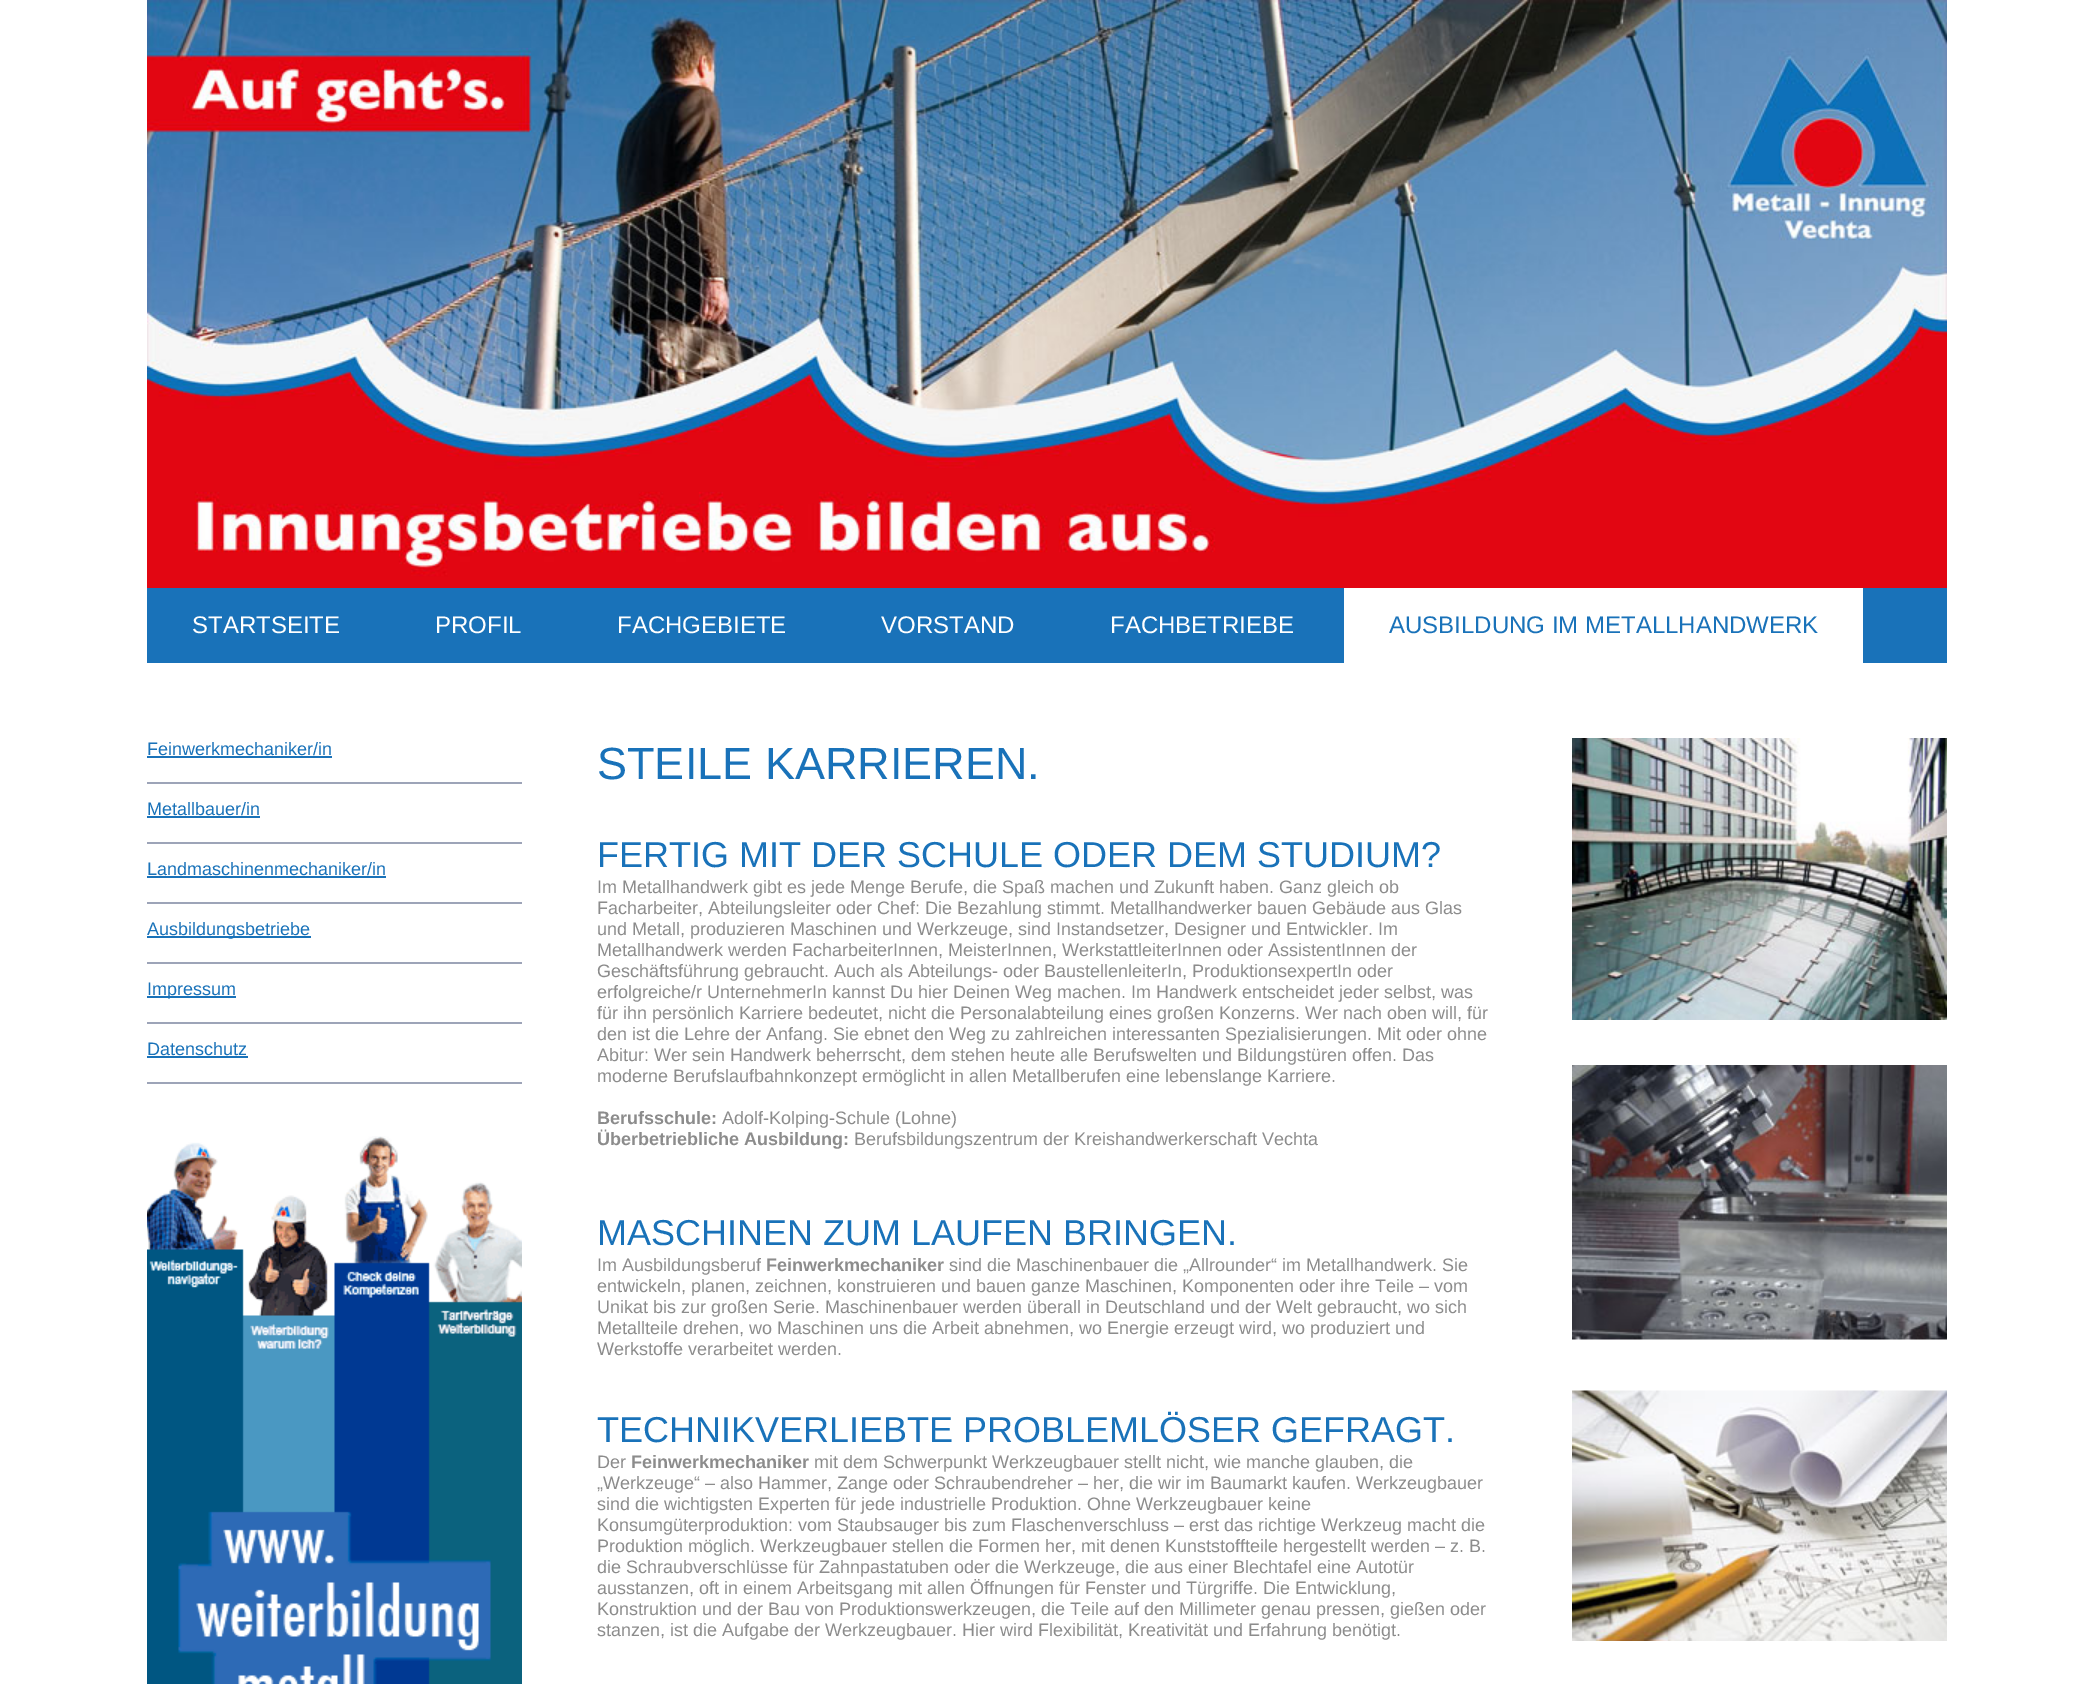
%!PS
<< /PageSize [2093 1684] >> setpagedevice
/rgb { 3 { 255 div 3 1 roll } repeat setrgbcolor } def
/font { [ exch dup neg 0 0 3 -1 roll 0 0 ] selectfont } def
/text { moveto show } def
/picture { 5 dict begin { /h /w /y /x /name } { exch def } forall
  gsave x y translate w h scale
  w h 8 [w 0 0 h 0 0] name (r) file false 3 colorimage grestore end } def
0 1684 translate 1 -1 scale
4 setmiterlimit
255 255 255 rgb
0 0 2093 1684 rectfill
(img_01.rgb) 147 0 1800 588 picture
25 114 185 rgb
147 588 1800 75 rectfill
255 255 255 rgb
1344 588 519 75 rectfill
25 114 185 rgb
147 756 185 2 rectfill
157 164 184 rgb
147 782 375 2 rectfill
25 114 185 rgb
147 816 113 2 rectfill
157 164 184 rgb
147 842 375 2 rectfill
25 114 185 rgb
147 876 239 2 rectfill
157 164 184 rgb
147 902 375 2 rectfill
25 114 185 rgb
147 936 164 2 rectfill
157 164 184 rgb
147 962 375 2 rectfill
25 114 185 rgb
147 996 89 2 rectfill
157 164 184 rgb
147 1022 375 2 rectfill
25 114 185 rgb
147 1056 101 2 rectfill
157 164 184 rgb
147 1082 375 2 rectfill
(img_02.rgb) 147 1136 375 548 picture
(img_03.rgb) 1572 738 375 282 picture
(img_04.rgb) 1572 1065 375 275 picture
(img_05.rgb) 1572 1390 375 251 picture
/LiberationSans-Regular 24 font
255 255 255 rgb
(STARTSEITE) 192 633 text
(PROFIL) 435 633 text
(FACHGEBIETE) 617 633 text
(VORSTAND) 881 633 text
(FACHBETRIEBE) 1110 633 text
25 114 185 rgb
(AUSBILDUNG IM METALLHANDWERK) 1389 633 text
/LiberationSans-Regular 18 font
(Feinwerkmechaniker/in) 147 755 text
(Metallbauer/in) 147 815 text
(Landmaschinenmechaniker/in) 147 875 text
(Ausbildungsbetriebe) 147 935 text
(Impressum) 147 995 text
(Datenschutz) 147 1055 text
/LiberationSans-Regular 45 font
(STEILE KARRIEREN.) 597 779 text
/LiberationSans-Regular 36 font
(FERTIG MIT DER SCHULE ODER DEM STUDIUM?) 597 867 text
/LiberationSans-Regular 18 font
140 140 140 rgb
(Im Metallhandwerk gibt es jede Menge Berufe, die Spaß machen und Zukunft haben. Ganz gleich ob) 597 893 text
(Facharbeiter, Abteilungsleiter oder Chef: Die Bezahlung stimmt. Metallhandwerker bauen Gebäude aus Glas) 597 914 text
(und Metall, produzieren Maschinen und Werkzeuge, sind Instandsetzer, Designer und Entwickler. Im) 597 935 text
(Metallhandwerk werden FacharbeiterInnen, MeisterInnen, WerkstattleiterInnen oder AssistentInnen der) 597 956 text
(Geschäftsführung gebraucht. Auch als Abteilungs- oder BaustellenleiterIn, ProduktionsexpertIn oder) 597 977 text
(erfolgreiche/r UnternehmerIn kannst Du hier Deinen Weg machen. Im Handwerk entscheidet jeder selbst, was) 597 998 text
(für ihn persönlich Karriere bedeutet, nicht die Personalabteilung eines großen Konzerns. Wer nach oben will, für) 597 1019 text
(den ist die Lehre der Anfang. Sie ebnet den Weg zu zahlreichen interessanten Spezialisierungen. Mit oder ohne) 597 1040 text
(Abitur: Wer sein Handwerk beherrscht, dem stehen heute alle Berufswelten und Bildungstüren offen. Das) 597 1061 text
(moderne Berufslaufbahnkonzept ermöglicht in allen Metallberufen eine lebenslange Karriere.) 597 1082 text
/LiberationSans-Bold 18 font
(Berufsschule:) 597 1124 text
/LiberationSans-Regular 18 font
(Adolf-Kolping-Schule \(Lohne\)) 722 1124 text
/LiberationSans-Bold 18 font
(Überbetriebliche Ausbildung:) 597 1145 text
/LiberationSans-Regular 18 font
(Berufsbildungszentrum der Kreishandwerkerschaft Vechta) 854 1145 text
/LiberationSans-Regular 36 font
25 114 185 rgb
(MASCHINEN ZUM LAUFEN BRINGEN.) 597 1245 text
/LiberationSans-Regular 18 font
140 140 140 rgb
(Im Ausbildungsberuf) 597 1271 text
/LiberationSans-Bold 18 font
(Feinwerkmechaniker) 766 1271 text
/LiberationSans-Regular 18 font
(sind die Maschinenbauer die „Allrounder“ im Metallhandwerk. Sie) 949 1271 text
(entwickeln, planen, zeichnen, konstruieren und bauen ganze Maschinen, Komponenten oder ihre Teile – vom) 597 1292 text
(Unikat bis zur großen Serie. Maschinenbauer werden überall in Deutschland und der Welt gebraucht, wo sich) 597 1313 text
(Metallteile drehen, wo Maschinen uns die Arbeit abnehmen, wo Energie erzeugt wird, wo produziert und) 597 1334 text
(Werkstoffe verarbeitet werden.) 597 1355 text
/LiberationSans-Regular 36 font
25 114 185 rgb
(TECHNIKVERLIEBTE PROBLEMLÖSER GEFRAGT.) 597 1442 text
/LiberationSans-Regular 18 font
140 140 140 rgb
(Der) 597 1468 text
/LiberationSans-Bold 18 font
(Feinwerkmechaniker) 631 1468 text
/LiberationSans-Regular 18 font
(mit dem Schwerpunkt Werkzeugbauer stellt nicht, wie manche glauben, die) 814 1468 text
(„Werkzeuge“ – also Hammer, Zange oder Schraubendreher – her, die wir im Baumarkt kaufen. Werkzeugbauer) 597 1489 text
(sind die wichtigsten Experten für jede industrielle Produktion. Ohne Werkzeugbauer keine) 597 1510 text
(Konsumgüterproduktion: vom Staubsauger bis zum Flaschenverschluss – erst das richtige Werkzeug macht die) 597 1531 text
(Produktion möglich. Werkzeugbauer stellen die Formen her, mit denen Kunststoffteile hergestellt werden – z. B.) 597 1552 text
(die Schraubverschlüsse für Zahnpastatuben oder die Werkzeuge, die aus einer Blechtafel eine Autotür) 597 1573 text
(ausstanzen, oft in einem Arbeitsgang mit allen Öffnungen für Fenster und Türgriffe. Die Entwicklung,) 597 1594 text
(Konstruktion und der Bau von Produktionswerkzeugen, die Teile auf den Millimeter genau pressen, gießen oder) 597 1615 text
(stanzen, ist die Aufgabe der Werkzeugbauer. Hier wird Flexibilität, Kreativität und Erfahrung benötigt.) 597 1636 text
showpage
